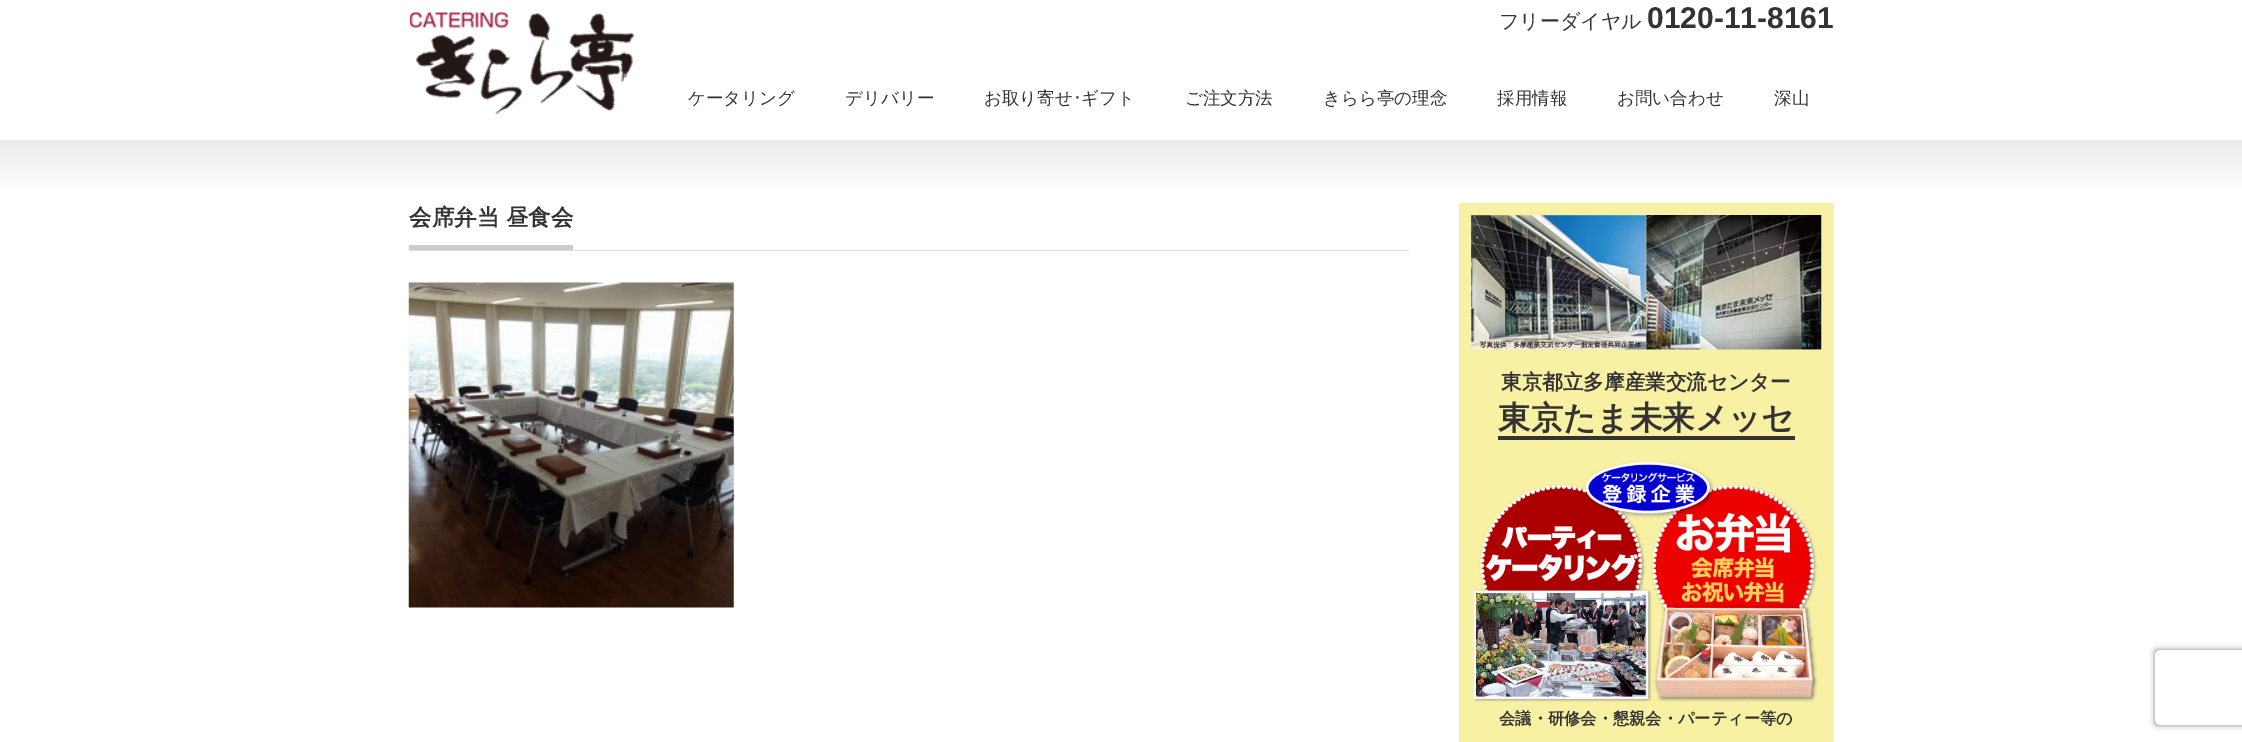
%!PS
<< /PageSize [2242 742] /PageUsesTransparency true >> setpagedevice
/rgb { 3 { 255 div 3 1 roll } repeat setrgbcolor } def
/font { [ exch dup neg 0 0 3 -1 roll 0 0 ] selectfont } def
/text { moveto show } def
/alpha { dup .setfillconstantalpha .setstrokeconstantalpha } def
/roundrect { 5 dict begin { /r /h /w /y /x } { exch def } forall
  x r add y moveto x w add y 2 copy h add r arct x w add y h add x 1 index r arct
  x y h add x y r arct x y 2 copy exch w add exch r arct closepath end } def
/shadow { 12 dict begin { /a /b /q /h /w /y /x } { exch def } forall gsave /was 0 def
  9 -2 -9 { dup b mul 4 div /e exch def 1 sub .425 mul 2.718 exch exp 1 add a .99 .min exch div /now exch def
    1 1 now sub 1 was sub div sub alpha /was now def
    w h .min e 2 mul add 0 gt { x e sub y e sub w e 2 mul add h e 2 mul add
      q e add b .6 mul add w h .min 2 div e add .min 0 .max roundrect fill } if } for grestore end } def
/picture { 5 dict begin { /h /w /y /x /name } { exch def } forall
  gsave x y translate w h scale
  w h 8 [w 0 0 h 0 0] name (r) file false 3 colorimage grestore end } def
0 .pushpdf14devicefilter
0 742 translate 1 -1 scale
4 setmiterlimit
255 255 255 rgb
0 0 2242 742 rectfill
(img_01.rgb) 409 12 225 102 picture
(img_02.rgb) 0 140 2242 46 picture
221 221 221 rgb
409 250 1000 1 rectfill
204 204 204 rgb
409 245 164 5 rectfill
(img_03.rgb) 408 282 326 326 picture
248 240 162 rgb
1459 203 375 539 rectfill
(img_04.rgb) 1471 215 351 135 picture
51 51 51 rgb
1498 436 297 4 rectfill
(img_05.rgb) 1473 461 345 241 picture
gsave
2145 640 moveto 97 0 rlineto 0 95 rlineto -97 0 rlineto closepath 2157.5 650 moveto 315 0 rlineto 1.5 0 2.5 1 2.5 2.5 rcurveto 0 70 rlineto 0 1.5 -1 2.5 -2.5 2.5 rcurveto -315 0 rlineto -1.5 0 -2.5 -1 -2.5 -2.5 rcurveto 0 -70 rlineto 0 -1.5 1 -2.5 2.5 -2.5 rcurveto closepath eoclip newpath
128 128 128 rgb
2155 650 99 75 2.5 3 1 shadow
grestore
/WenQuanYiZenHei-Medium 20 font
(フリーダイヤル) 1499 28 text
/LiberationSans-Bold 30 font
(0120-11-8161) 1647 28 text
/WenQuanYiZenHei-Medium 17.5 font
(ケータリング) 688 104 text
(デリバリー) 845 104 text
(お取り寄せ) 984 104 text
/IPAGothic-Regular 17.5 font
(･) 1073 104 text
/WenQuanYiZenHei-Medium 17.5 font
(ギフト) 1081 104 text
(ご注文方法) 1185 104 text
(きらら亭の理念) 1323 104 text
(採用情報) 1497 104 text
(お問い合わせ) 1617 104 text
(深山) 1774 104 text
/WenQuanYiZenHei-Bold 22.5 font
(会席弁当 昼食会) 409 225 text
/WenQuanYiZenHei-Bold 20.6 font
(東京都立多摩産業交流センター) 1501 389 text
/WenQuanYiZenHei-Bold 32.5 font
(東京たま未来メッセ) 1498 429 text
/WenQuanYiZenHei-Bold 16.25 font
(会議・研修会・懇親会・パーティー等の) 1499 724 text
.poppdf14devicefilter showpage
